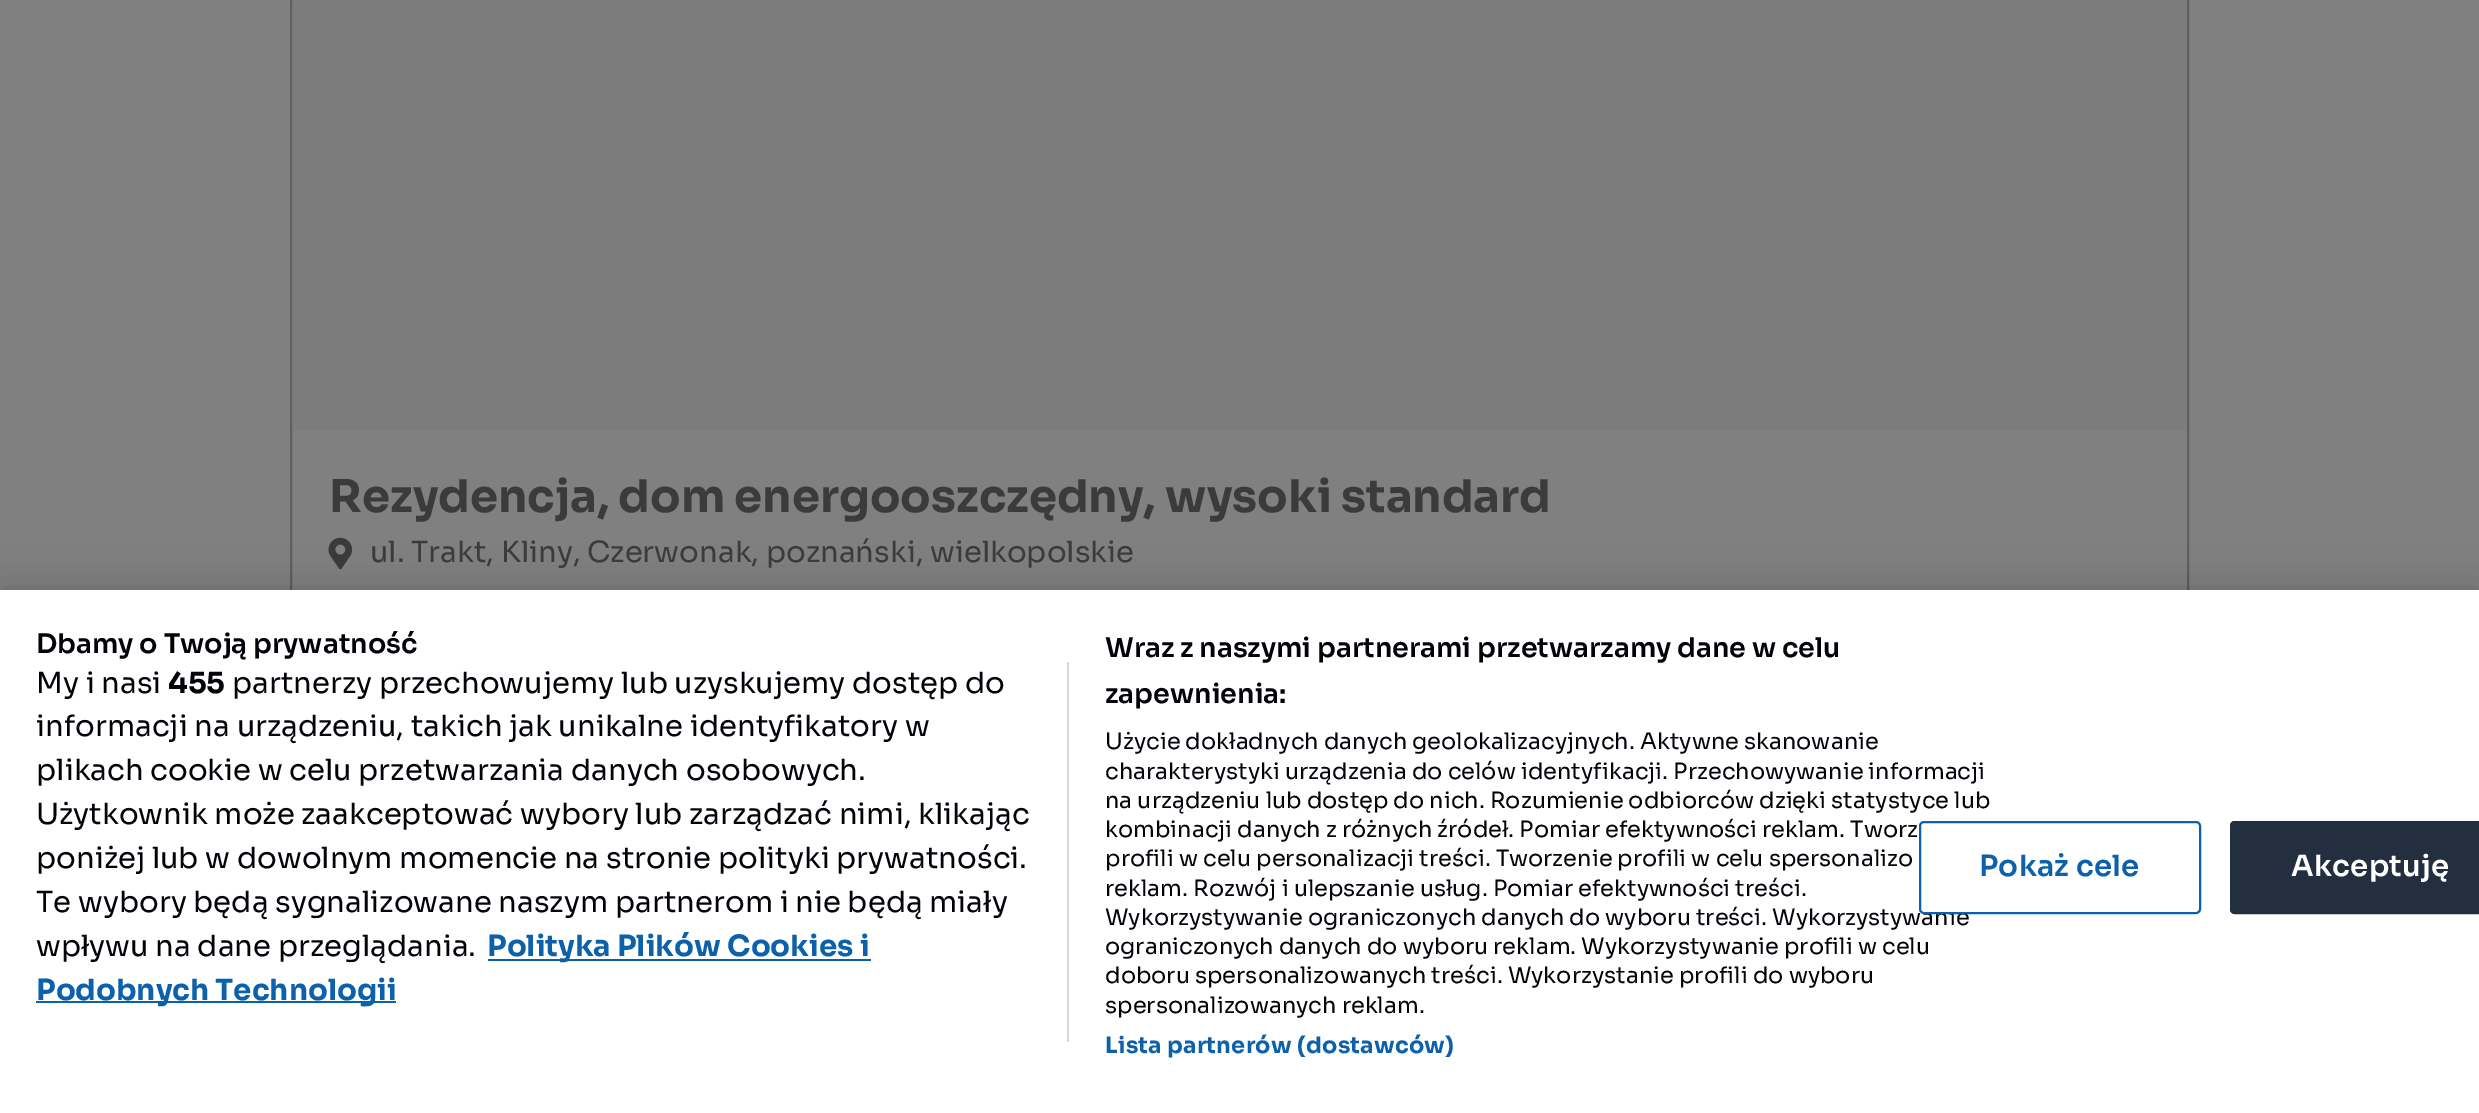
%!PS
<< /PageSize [2479 1113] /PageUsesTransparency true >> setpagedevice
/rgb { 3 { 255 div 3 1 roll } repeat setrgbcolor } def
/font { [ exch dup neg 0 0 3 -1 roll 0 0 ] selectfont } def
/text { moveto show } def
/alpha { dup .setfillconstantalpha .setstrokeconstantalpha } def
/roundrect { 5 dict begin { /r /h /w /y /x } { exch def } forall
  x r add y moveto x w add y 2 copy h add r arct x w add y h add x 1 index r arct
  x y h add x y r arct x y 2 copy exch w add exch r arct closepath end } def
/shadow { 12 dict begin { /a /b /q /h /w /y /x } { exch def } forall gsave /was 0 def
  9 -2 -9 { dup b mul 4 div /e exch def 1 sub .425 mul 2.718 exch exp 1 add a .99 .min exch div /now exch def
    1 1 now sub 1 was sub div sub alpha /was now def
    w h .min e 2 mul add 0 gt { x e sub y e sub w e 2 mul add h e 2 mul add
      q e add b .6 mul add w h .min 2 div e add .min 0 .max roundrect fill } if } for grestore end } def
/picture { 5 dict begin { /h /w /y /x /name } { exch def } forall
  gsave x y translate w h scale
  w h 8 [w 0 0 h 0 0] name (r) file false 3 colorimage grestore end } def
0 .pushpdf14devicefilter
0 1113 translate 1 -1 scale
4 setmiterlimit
128 128 128 rgb
0 0 2479 1113 rectfill
95 95 95 rgb
2 setlinewidth
291 -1 1897 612 rectstroke
124 124 124 rgb
293 0 1894 430 rectfill
(img_01.rgb) 328 537 25 33 picture
0 0 0 rgb
0 590 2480 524 0 20 0.2 shadow
255 255 255 rgb
0 590 2479 523 rectfill
216 216 216 rgb
1067 662 2 380 rectfill
13 97 171 rgb
488 959 383 2 rectfill
36 1001 360 2 rectfill
35 46 63 rgb
2235 821 moveto 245 0 rlineto 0 93 rlineto -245 0 rlineto -3 0 -5 -2 -5 -5 rcurveto 0 -83 rlineto 0 -3 2 -5 5 -5 rcurveto closepath fill
2231 822 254 91 4 roundrect stroke
/Sora-Bold 45 font
59 59 59 rgb
(Rezydencja, dom energooszczędny, wysoki standard) 329 512 text
/Sora-Regular 29.25 font
(ul. Trakt, Kliny, Czerwonak, poznański, wielkopolskie) 370 562 text
/Sora-SemiBold 27 font
2 3 9 rgb
(Dbamy o Twoją prywatność) 36 653 text
(Wraz z naszymi partnerami przetwarzamy dane w celu) 1105 657 text
(zapewnienia:) 1105 703 text
/Sora-Regular 22.5 font
(Użycie dokładnych danych geolokalizacyjnych. Aktywne skanowanie) 1105 749 text
(charakterystyki urządzenia do celów identyfikacji. Przechowywanie informacji) 1105 779 text
(na urządzeniu lub dostęp do nich. Rozumienie odbiorców dzięki statystyce lub) 1105 808 text
(kombinacji danych z różnych źródeł. Pomiar efektywności reklam. Tworz) 1105 837 text
(profili w celu personalizacji treści. Tworzenie profili w celu spersonalizo) 1105 866 text
(reklam. Rozwój i ulepszanie usług. Pomiar efektywności treści.) 1105 896 text
(Wykorzystywanie ograniczonych danych do wyboru treści. Wykorzystywanie) 1105 925 text
(ograniczonych danych do wyboru reklam. Wykorzystywanie profili w celu) 1105 954 text
(doboru spersonalizowanych treści. Wykorzystanie profili do wyboru) 1105 983 text
(spersonalizowanych reklam.) 1105 1013 text
/Sora-Bold 22.5 font
13 97 171 rgb
1105 1053 moveto 0.25 0 (Lista partnerów \(dostawców\)) ashow
/Sora-Regular 29.25 font
2 3 9 rgb
(My i nasi) 36 693 text
/Sora-Bold 29.25 font
(455) 168 693 text
/Sora-Regular 29.25 font
(partnerzy przechowujemy lub uzyskujemy dostęp do) 232 693 text
(informacji na urządzeniu, takich jak unikalne identyfikatory w) 36 736 text
(plikach cookie w celu przetwarzania danych osobowych.) 36 780 text
(Użytkownik może zaakceptować wybory lub zarządzać nimi, klikając) 36 824 text
(poniżej lub w dowolnym momencie na stronie polityki prywatności.) 36 868 text
(Te wybory będą sygnalizowane naszym partnerom i nie będą miały) 36 912 text
(wpływu na dane przeglądania.) 36 956 text
/Sora-Bold 29.25 font
13 97 171 rgb
(Polityka Plików Cookies i) 487 956 text
(Podobnych Technologii) 36 1000 text
255 255 255 rgb
1920 822 280 91 4 roundrect gsave fill grestore
13 97 171 rgb
stroke
/Sora-SemiBold 29.25 font
1979 876 moveto 0.25 0 (Pokaż cele) ashow
255 255 255 rgb
2291 876 moveto 0.25 0 (Akceptuję) ashow
.poppdf14devicefilter showpage
